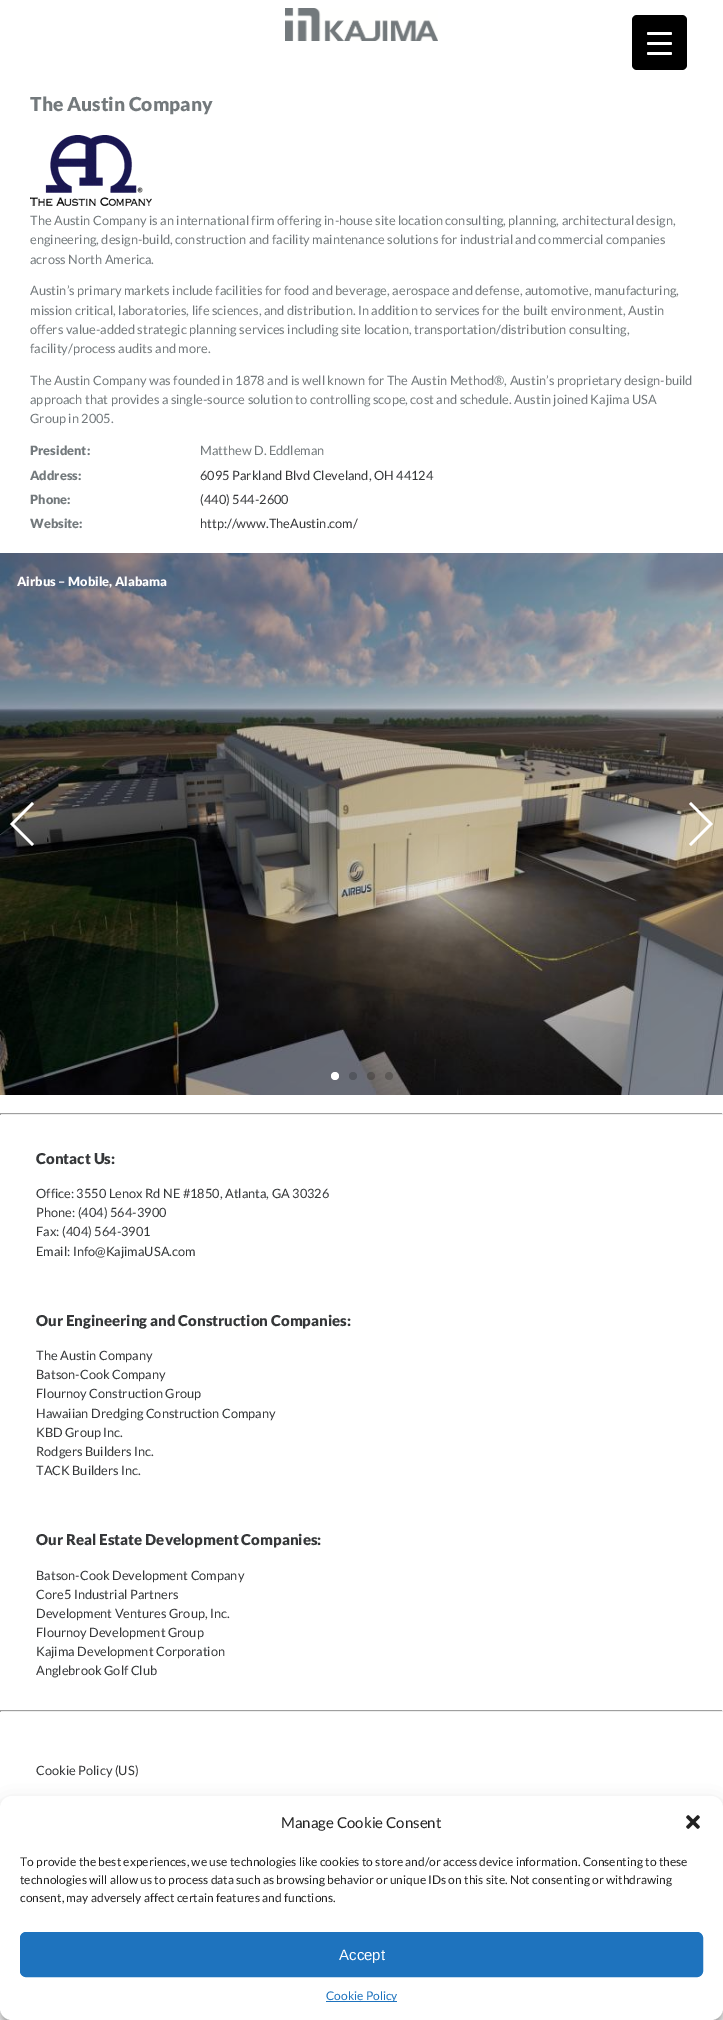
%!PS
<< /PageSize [723 2020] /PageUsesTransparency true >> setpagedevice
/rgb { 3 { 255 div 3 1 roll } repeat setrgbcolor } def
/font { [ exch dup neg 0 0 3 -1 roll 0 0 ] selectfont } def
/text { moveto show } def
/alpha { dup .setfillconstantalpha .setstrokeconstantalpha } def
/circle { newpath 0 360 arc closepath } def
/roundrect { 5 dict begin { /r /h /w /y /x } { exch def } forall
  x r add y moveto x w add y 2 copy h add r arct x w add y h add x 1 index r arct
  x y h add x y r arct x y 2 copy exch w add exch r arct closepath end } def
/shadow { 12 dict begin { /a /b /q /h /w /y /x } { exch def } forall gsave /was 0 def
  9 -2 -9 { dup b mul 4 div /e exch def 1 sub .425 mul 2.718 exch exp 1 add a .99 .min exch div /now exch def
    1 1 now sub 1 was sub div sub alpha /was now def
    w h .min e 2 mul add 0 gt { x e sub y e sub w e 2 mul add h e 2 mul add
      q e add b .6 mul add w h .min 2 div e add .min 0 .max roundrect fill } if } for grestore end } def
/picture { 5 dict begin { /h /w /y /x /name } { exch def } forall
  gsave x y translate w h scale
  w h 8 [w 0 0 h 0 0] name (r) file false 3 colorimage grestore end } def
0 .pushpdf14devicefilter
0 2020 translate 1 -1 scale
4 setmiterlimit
255 255 255 rgb
0 0 723 2020 rectfill
0 0 0 rgb
632 15 55 55 5 roundrect fill
255 255 255 rgb
647 42 25 3 1.5 roundrect fill
647 32 25 3 1.5 roundrect fill
647 52 25 3 1.5 roundrect fill
(img_01.rgb) 285 8 153 33 picture
(img_02.rgb) 30 135 122 71 picture
(img_03.rgb) 0 553 723 542 picture
10 824 moveto 22 -22 rlineto 2 2 rlineto -20 20 rlineto 20 20 rlineto -2 2 rlineto closepath fill
713 824 moveto -22 22 rlineto -2 -2 rlineto 20 -20 rlineto -20 -20 rlineto 2 -2 rlineto closepath fill
335 1076 4 circle fill
83 86 94 rgb
353 1076 4 circle fill
0.2 alpha
0 0 0 rgb
371 1076 4 circle fill
389 1076 4 circle fill
1 alpha
159 159 159 rgb
0 1113 723 1 rectfill
238 238 238 rgb
722 1113 1 2 rectfill
0 1114 723 1 rectfill
159 159 159 rgb
0 1113 1 2 rectfill
0 1710 723 1 rectfill
238 238 238 rgb
722 1710 1 2 rectfill
0 1711 723 1 rectfill
159 159 159 rgb
0 1710 1 2 rectfill
0 0 0 rgb
0 1802 723 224 12 3 0.23 shadow
0 1806 723 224 12 10 0.19 shadow
255 255 255 rgb
0 1796 723 224 12 roundrect fill
(img_04.rgb) 686 1815 14 14 picture
30 115 190 rgb
20.5 1932.5 682 44 5.5 roundrect gsave fill grestore
stroke
326 2001 71 1 rectfill
/Lato-Black 19.25 font
115 121 124 rgb
(The Austin Company) 30 111 text
/Lato-Regular 12.8 font
(The Austin Company is an international firm offering in-house site location consulting, planning, architectural design,) 30 225 text
(engineering, design-build, construction and facility maintenance solutions for industrial and commercial companies) 30 244 text
(across North America.) 30 264 text
(Austin’s primary markets include facilities for food and beverage, aerospace and defense, automotive, manufacturing,) 30 295 text
(mission critical, laboratories, life sciences, and distribution. In addition to services for the built environment, Austin) 30 315 text
(offers value-added strategic planning services including site location, transportation/distribution consulting,) 30 334 text
(facility/process audits and more.) 30 353 text
(The Austin Company was founded in 1878 and is well known for The Austin Method®, Austin’s proprietary design-build) 30 385 text
(approach that provides a single-source solution to controlling scope, cost and schedule. Austin joined Kajima USA) 30 404 text
(Group in 2005.) 30 423 text
/Lato-Black 12.8 font
(President:) 30 455 text
/Lato-Regular 12.8 font
(Matthew D. Eddleman) 200 455 text
/Lato-Black 12.8 font
(Address:) 30 480 text
/Lato-Regular 12.8 font
53 55 57 rgb
(6095 Parkland Blvd Cleveland, OH 44124) 200 480 text
/Lato-Black 12.8 font
115 121 124 rgb
(Phone:) 30 504 text
/Lato-Regular 12.8 font
53 55 57 rgb
(\(440\) 544-2600) 200 504 text
/Lato-Black 12.8 font
115 121 124 rgb
(Website:) 30 528 text
/Lato-Regular 12.8 font
53 55 57 rgb
(http://www.TheAustin.com/) 200 528 text
/Lato-Black 12.8 font
255 255 255 rgb
(Airbus – Mobile, Alabama) 17 586 text
/Lato-Black 15 font
53 55 57 rgb
(Contact Us:) 36 1164 text
/Lato-Regular 12.8 font
(Office: 3550 Lenox Rd NE #1850, Atlanta, GA 30326) 36 1198 text
(Phone: \(404\) 564-3900) 36 1217 text
(Fax: \(404\) 564-3901) 36 1236 text
(Email: Info@KajimaUSA.com) 36 1256 text
/Lato-Black 15 font
(Our Engineering and Construction Companies:) 36 1326 text
/Lato-Regular 12.8 font
(The Austin Company) 36 1360 text
(Batson-Cook Company) 36 1379 text
(Flournoy Construction Group) 36 1398 text
(Hawaiian Dredging Construction Company) 36 1418 text
(KBD Group Inc.) 36 1437 text
(Rodgers Builders Inc.) 36 1456 text
(TACK Builders Inc.) 36 1475 text
/Lato-Black 15 font
(Our Real Estate Development Companies:) 36 1545 text
/Lato-Regular 12.8 font
(Batson-Cook Development Company) 36 1580 text
(Core5 Industrial Partners) 36 1599 text
(Development Ventures Group, Inc.) 36 1618 text
(Flournoy Development Group) 36 1637 text
(Kajima Development Corporation) 36 1656 text
(Anglebrook Golf Club) 36 1675 text
(Cookie Policy \(US\)) 36 1775 text
/Lato-Regular 15 font
34 34 34 rgb
(Manage Cookie Consent) 281 1828 text
/Lato-Regular 12 font
(To provide the best experiences, we use technologies like cookies to store and/or access device information. Consenting to these) 20 1866 text
(technologies will allow us to process data such as browsing behavior or unique IDs on this site. Not consenting or withdrawing) 20 1884 text
(consent, may adversely affect certain features and functions.) 20 1902 text
/LiberationSans-Regular 15 font
255 255 255 rgb
(Accept) 339 1960 text
/Lato-Regular 12 font
30 115 190 rgb
(Cookie Policy) 326 2000 text
.poppdf14devicefilter showpage
